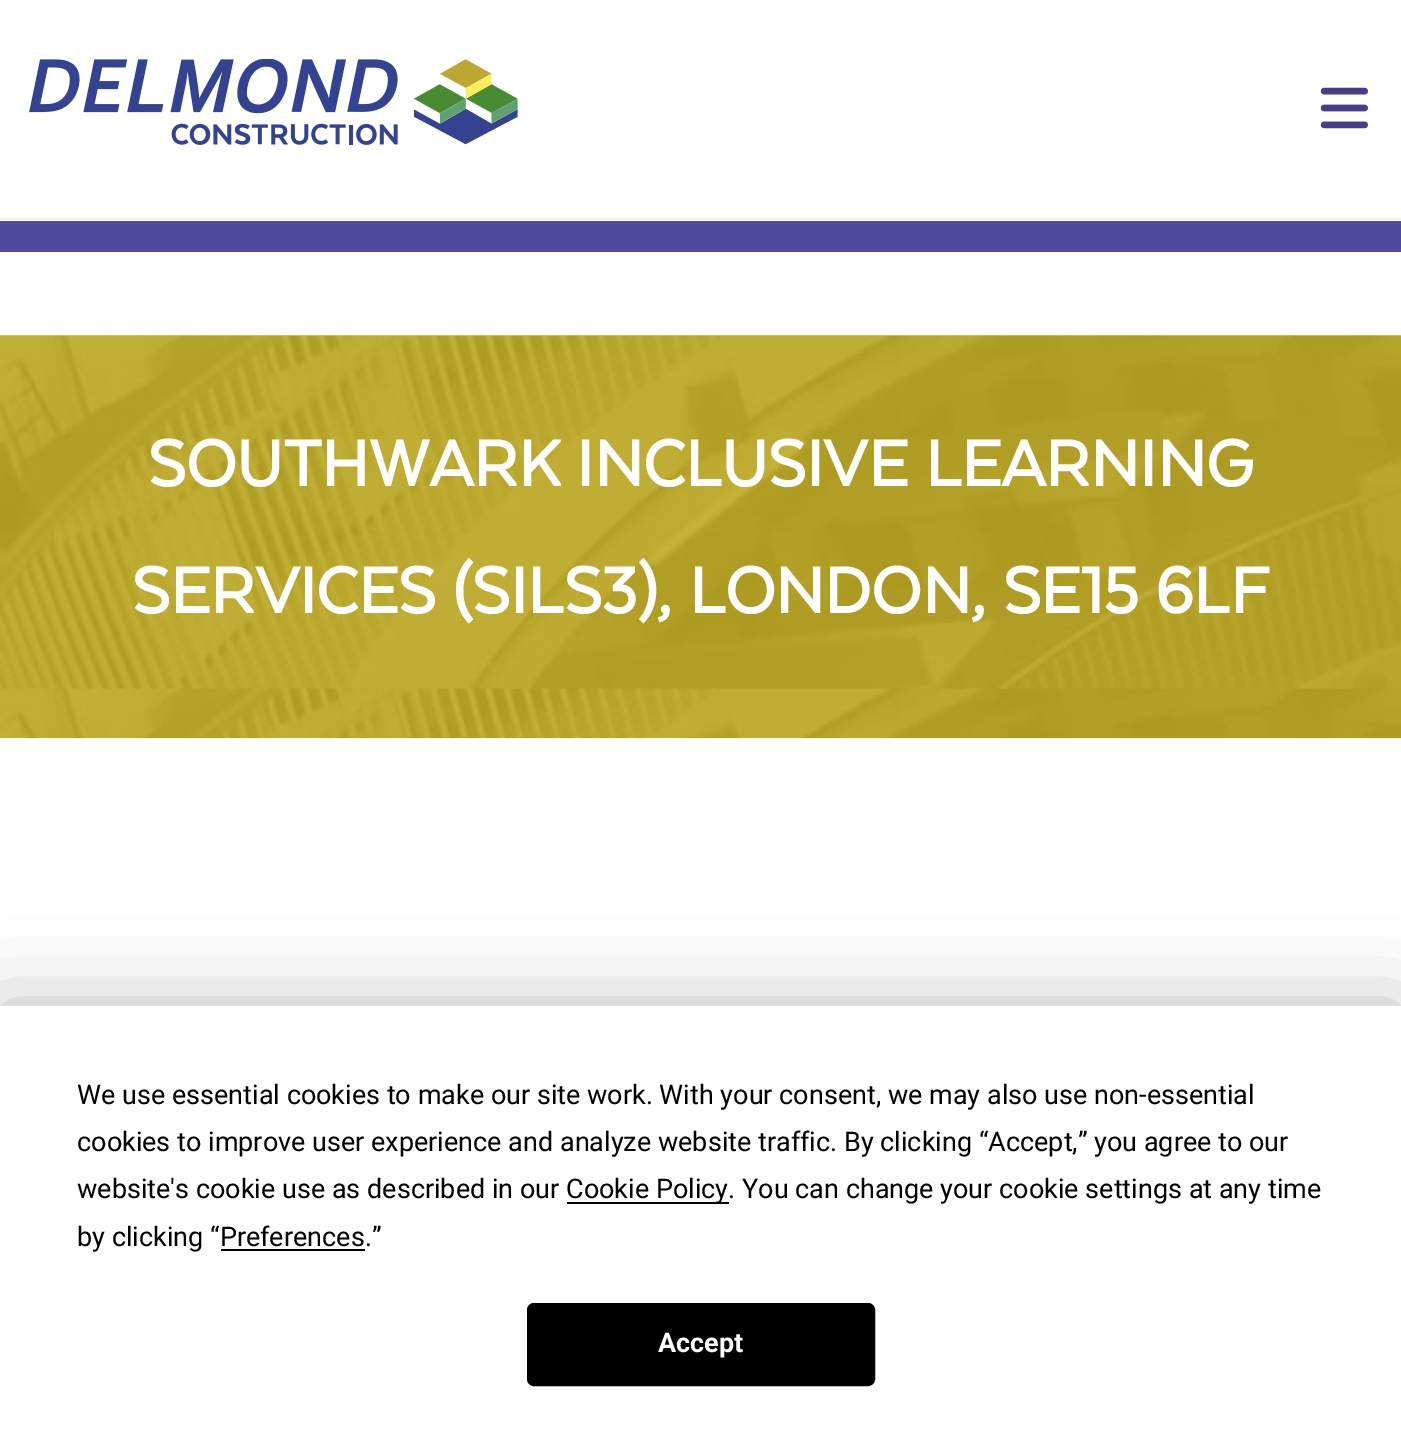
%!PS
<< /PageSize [1401 1452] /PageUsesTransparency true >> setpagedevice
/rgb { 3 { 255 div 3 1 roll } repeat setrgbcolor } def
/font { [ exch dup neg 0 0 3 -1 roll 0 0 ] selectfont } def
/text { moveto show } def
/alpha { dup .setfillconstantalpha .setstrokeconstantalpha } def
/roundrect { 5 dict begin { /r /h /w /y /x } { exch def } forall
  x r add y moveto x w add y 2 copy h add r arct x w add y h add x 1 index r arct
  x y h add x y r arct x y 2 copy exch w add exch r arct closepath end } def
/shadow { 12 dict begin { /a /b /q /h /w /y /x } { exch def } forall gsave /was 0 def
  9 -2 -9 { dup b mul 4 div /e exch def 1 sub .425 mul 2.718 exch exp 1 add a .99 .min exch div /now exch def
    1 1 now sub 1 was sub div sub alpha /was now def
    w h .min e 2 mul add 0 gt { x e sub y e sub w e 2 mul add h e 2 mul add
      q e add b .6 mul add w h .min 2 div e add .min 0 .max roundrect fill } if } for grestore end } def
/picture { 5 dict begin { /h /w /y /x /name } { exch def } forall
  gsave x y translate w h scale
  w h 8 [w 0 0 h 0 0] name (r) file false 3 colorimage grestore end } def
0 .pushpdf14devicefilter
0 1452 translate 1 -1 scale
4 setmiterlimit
255 255 255 rgb
0 0 1401 1452 rectfill
238 238 238 rgb
0 218 1401 2 rectfill
(img_01.rgb) 29 59 489 86 picture
(img_02.rgb) 1320 87 48 42 picture
79 73 160 rgb
0 221 1401 31 rectfill
(img_03.rgb) 0 335 1401 403 picture
0 0 0 rgb
0 1006 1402 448 0 39.5 0.25 shadow
255 255 255 rgb
0 1006 1401 446 rectfill
0 0 0 rgb
567 1202 162 2 rectfill
221 1249 144 2 rectfill
528 1304 346 81 6 roundrect gsave fill grestore
2 setlinewidth
stroke
/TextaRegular-Bold 74.25 font
255 255 255 rgb
(SOUTHWARK INCLUSIVE LEARNING) 148 486 text
(SERVICES \(SILS3\), LONDON, SE15 6LF) 132 613 text
/Roboto-Regular 27 font
0 0 0 rgb
(We use essential cookies to make our site work. With your consent, we may also use non-essential) 77 1104 text
(cookies to improve user experience and analyze website traffic. By clicking “Accept,” you agree to our) 77 1151 text
(website's cookie use as described in our) 77 1198 text
(Cookie Policy. You can change your cookie settings at any time) 566 1198 text
(by clicking “Preferences.”) 77 1246 text
/Roboto-Bold 27 font
255 255 255 rgb
(Accept) 658 1352 text
.poppdf14devicefilter showpage
